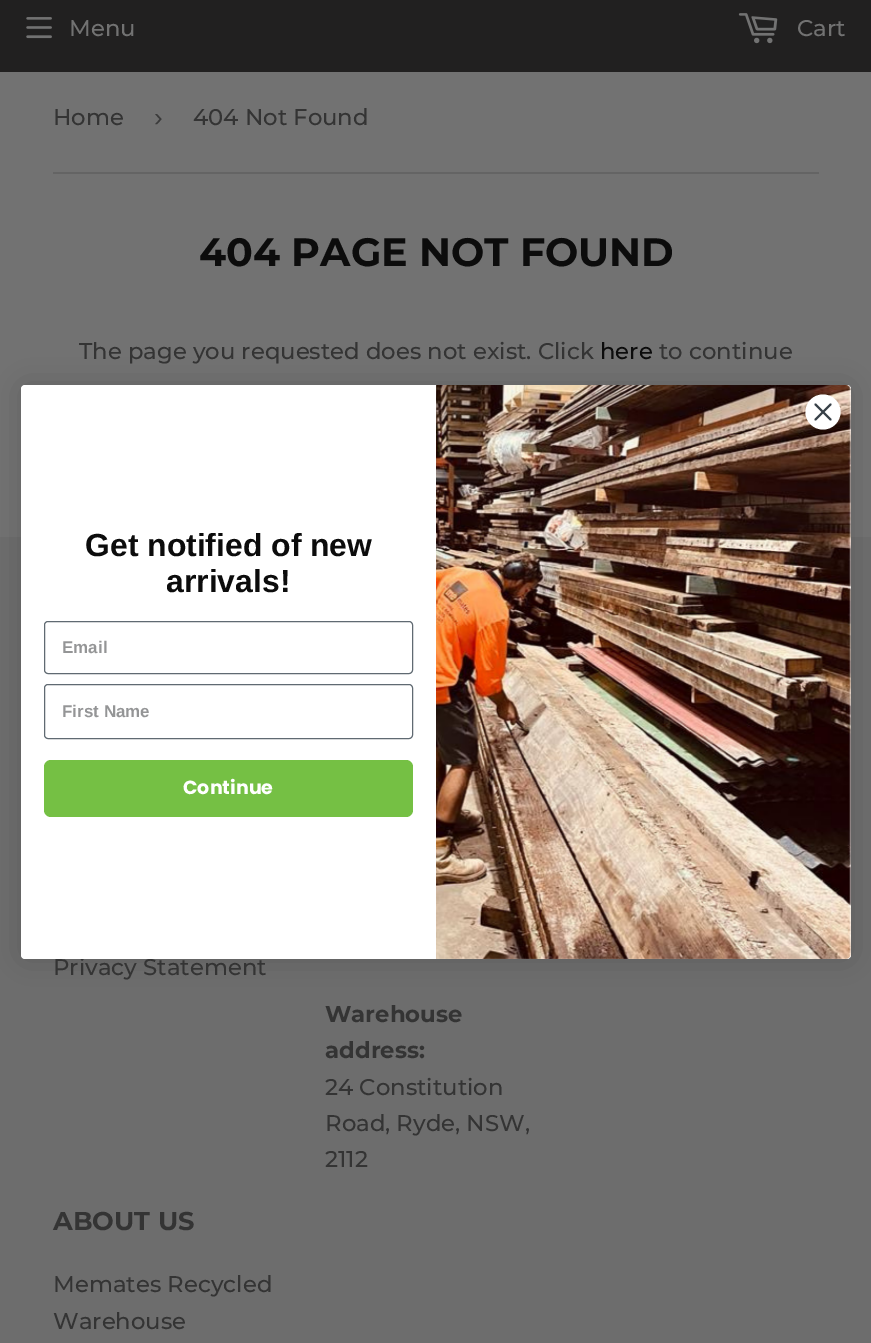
%!PS
<< /PageSize [871 1343] /PageUsesTransparency true >> setpagedevice
/rgb { 3 { 255 div 3 1 roll } repeat setrgbcolor } def
/font { [ exch dup neg 0 0 3 -1 roll 0 0 ] selectfont } def
/text { moveto show } def
/alpha { dup .setfillconstantalpha .setstrokeconstantalpha } def
/circle { newpath 0 360 arc closepath } def
/roundrect { 5 dict begin { /r /h /w /y /x } { exch def } forall
  x r add y moveto x w add y 2 copy h add r arct x w add y h add x 1 index r arct
  x y h add x y r arct x y 2 copy exch w add exch r arct closepath end } def
/shadow { 12 dict begin { /a /b /q /h /w /y /x } { exch def } forall gsave /was 0 def
  9 -2 -9 { dup b mul 4 div /e exch def 1 sub .425 mul 2.718 exch exp 1 add a .99 .min exch div /now exch def
    1 1 now sub 1 was sub div sub alpha /was now def
    w h .min e 2 mul add 0 gt { x e sub y e sub w e 2 mul add h e 2 mul add
      q e add b .6 mul add w h .min 2 div e add .min 0 .max roundrect fill } if } for grestore end } def
/picture { 5 dict begin { /h /w /y /x /name } { exch def } forall
  gsave x y translate w h scale
  w h 8 [w 0 0 h 0 0] name (r) file false 3 colorimage grestore end } def
0 .pushpdf14devicefilter
0 1343 translate 1 -1 scale
4 setmiterlimit
114 114 114 rgb
0 0 871 1343 rectfill
33 32 32 rgb
0 0 871 72 rectfill
(img_01.rgb) 26 17 26 22 picture
(img_02.rgb) 738 13 40 31 picture
100 100 100 rgb
53 172 766 2 rectfill
109 109 109 rgb
0 537 871 806 rectfill
0 0 0 rgb
21 385 830 574 4 16 0.15 shadow
/Montserrat-Medium 22.75 font
114 114 114 rgb
(Menu) 69 36 text
(Cart) 797 36 text
52 52 52 rgb
(Home) 53 125 text
/LiberationSans-Regular 26 font
59 59 59 rgb
(›) 154 126 text
/Montserrat-Medium 22.75 font
52 52 52 rgb
(404 Not Found) 193 125 text
/Montserrat-Bold 39.5 font
12 12 12 rgb
(404 PAGE NOT FOUND) 199 266 text
/Montserrat-Medium 22.75 font
52 52 52 rgb
(The page you requested does not exist. Click) 79 359 text
12 12 12 rgb
(here) 600 359 text
52 52 52 rgb
(to continue) 659 359 text
(Privacy Statement) 53 975 text
255 255 255 rgb
21 385 830 574 4 roundrect fill
436 385 moveto 411 0 rlineto 2 0 4 2 4 4 rcurveto 0 566 rlineto 0 2 -2 4 -4 4 rcurveto -411 0 rlineto closepath fill
(img_03.rgb) 436 385 415 574 picture
823 412 17.5 circle fill
55 63 71 rgb
1.9 setlinewidth
1 setlinecap
1 setlinejoin
815.5 404.5 moveto 15 15 rlineto 815.5 419.5 moveto 15 -15 rlineto closepath stroke
117 192 68 rgb
44 760 369 57 7 roundrect fill
/Poppins-Bold 19 font
255 255 255 rgb
(Continue) 183 794 text
96 106 114 rgb
1 setlinewidth
0 setlinecap
0 setlinejoin
44.5 684.5 368 54 3.5 roundrect stroke
/LiberationSans-Bold 17 font
148 149 150 rgb
(First Name) 62 717 text
96 106 114 rgb
44.5 621.5 368 52 3.5 roundrect stroke
148 149 150 rgb
(Email) 62 653 text
/LiberationSans-Bold 31.9 font
12 12 12 rgb
(arrivals!) 166 592 text
(Get notified of new) 85 556 text
/Montserrat-Bold 22.75 font
52 52 52 rgb
(Warehouse) 325 1022 text
(address:) 325 1058 text
/Montserrat-Medium 22.75 font
(24 Constitution) 325 1095 text
(Road, Ryde, NSW,) 325 1131 text
(2112) 325 1167 text
/Montserrat-Bold 25.75 font
(ABOUT US) 53 1230 text
/Montserrat-Medium 22.75 font
(Memates Recycled) 53 1292 text
(Warehouse) 53 1329 text
.poppdf14devicefilter showpage
